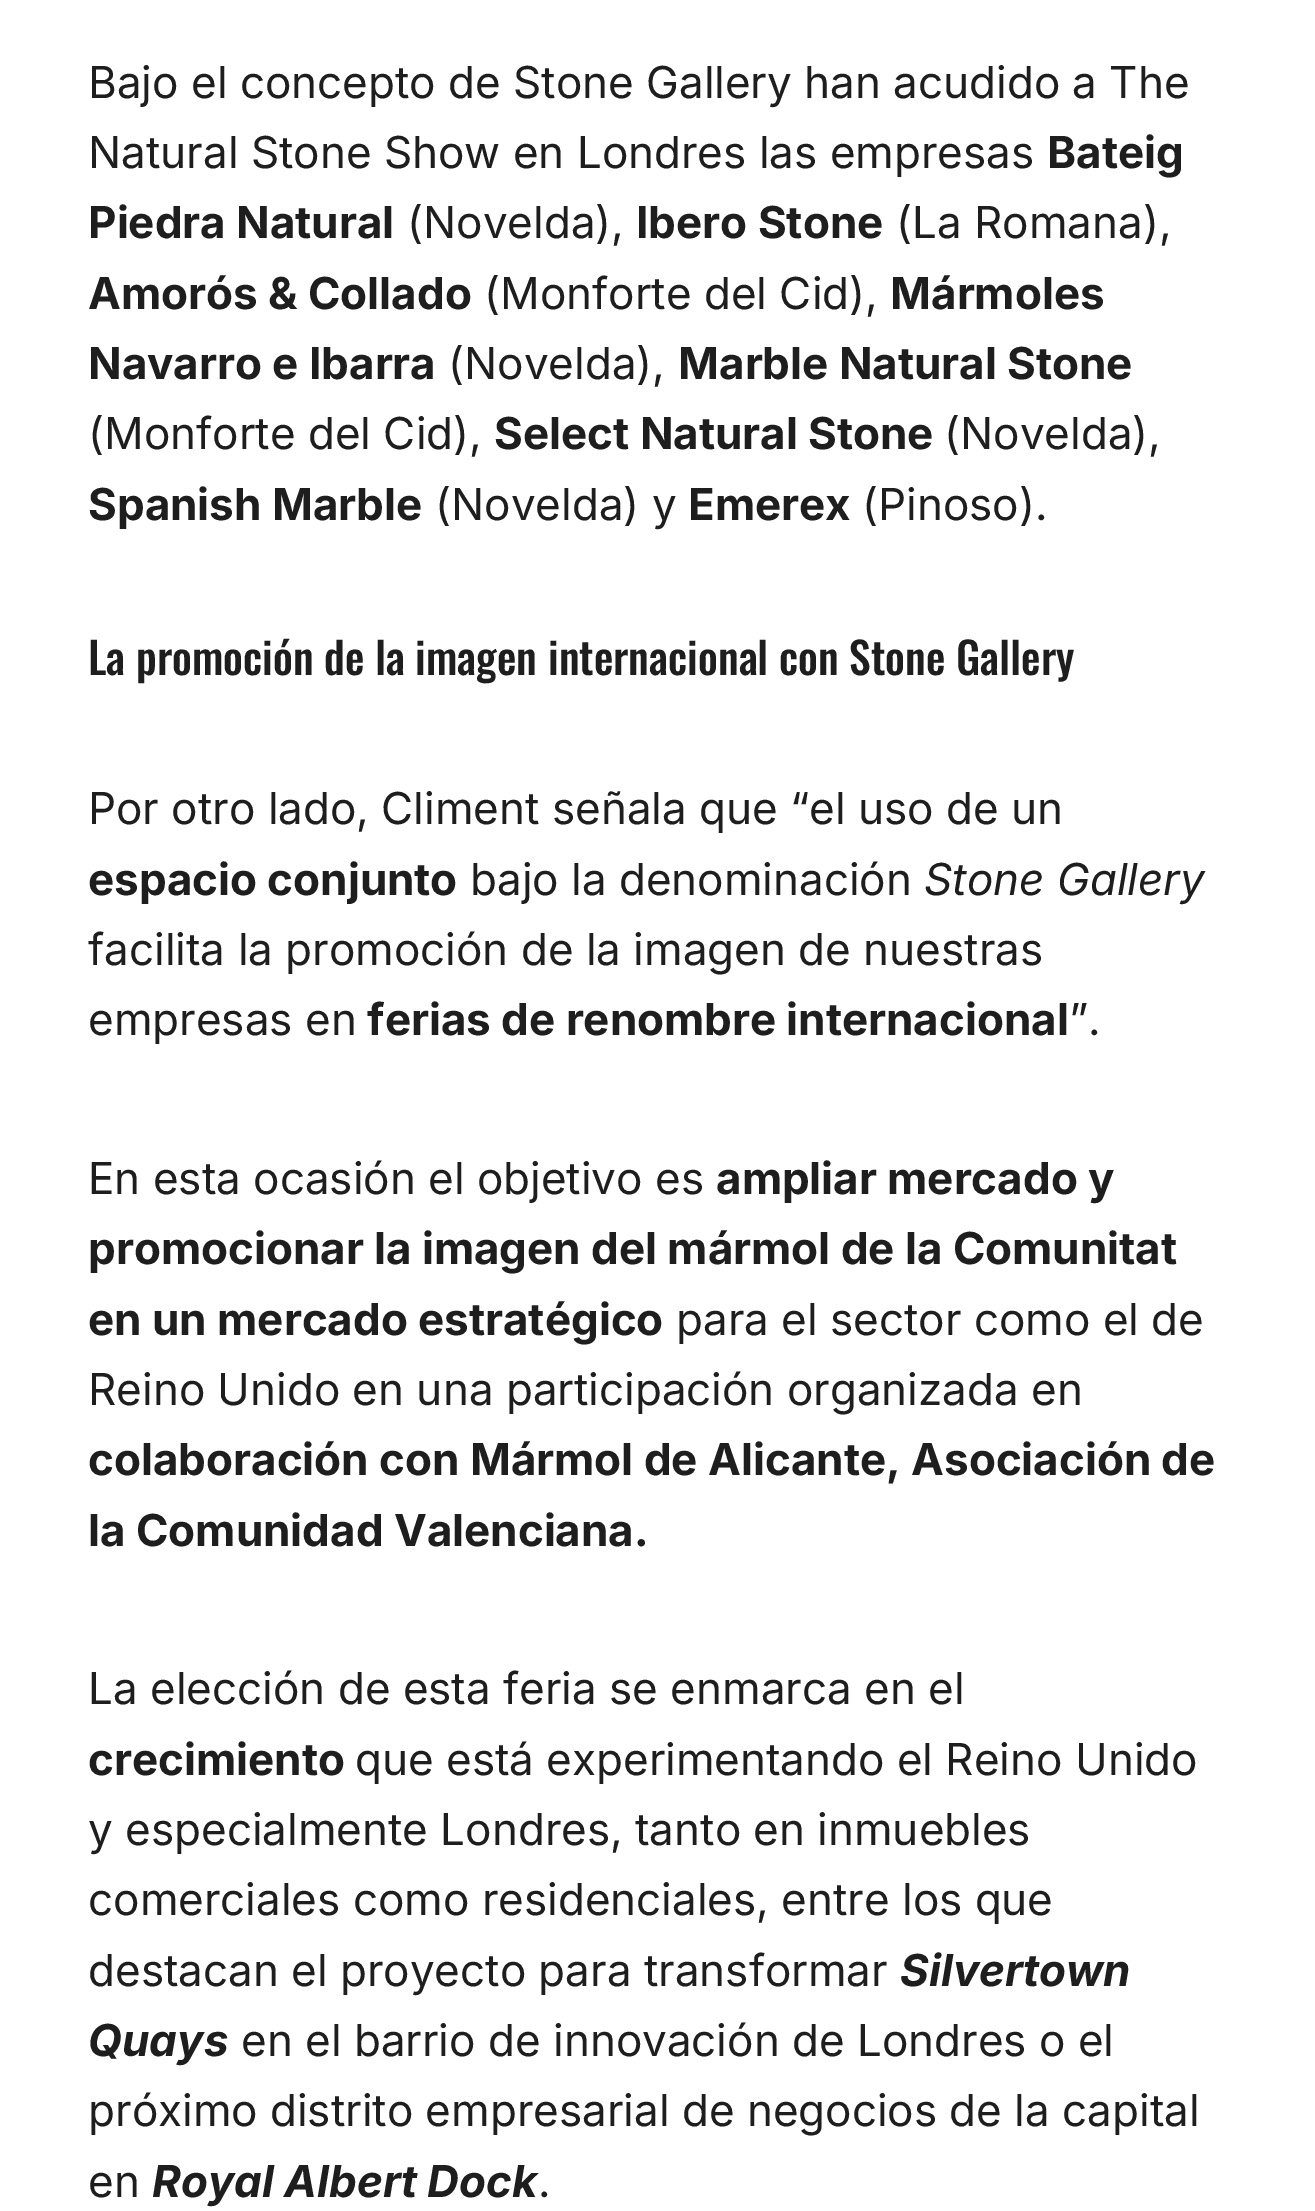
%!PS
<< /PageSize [1315 2211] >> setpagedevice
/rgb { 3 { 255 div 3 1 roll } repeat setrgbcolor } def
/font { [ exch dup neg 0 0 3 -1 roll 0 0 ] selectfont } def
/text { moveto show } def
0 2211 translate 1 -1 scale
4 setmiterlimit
255 255 255 rgb
0 0 1315 2211 rectfill
/Inter-Regular 44 font
30 30 30 rgb
(Bajo el concepto de Stone Gallery han acudido a The) 88 98 text
(Natural Stone Show en Londres las empresas) 88 168 text
/Inter-Bold 44 font
(Bateig) 1047 168 text
(Piedra Natural) 88 238 text
/Inter-Regular 44 font
(\(Novelda\),) 407 238 text
/Inter-Bold 44 font
(Ibero Stone) 636 238 text
/Inter-Regular 44 font
(\(La Romana\),) 896 238 text
/Inter-Bold 44 font
(Amorós & Collado) 88 309 text
/Inter-Regular 44 font
(\(Monforte del Cid\),) 484 309 text
/Inter-Bold 44 font
(Mármoles) 890 309 text
(Navarro e Ibarra) 88 379 text
/Inter-Regular 44 font
(\(Novelda\),) 448 379 text
/Inter-Bold 44 font
(Marble Natural Stone) 678 379 text
/Inter-Regular 44 font
(\(Monforte del Cid\),) 88 449 text
/Inter-Bold 44 font
(Select Natural Stone) 494 449 text
/Inter-Regular 44 font
(\(Novelda\),) 944 449 text
/Inter-Bold 44 font
(Spanish Marble) 88 520 text
/Inter-Regular 44 font
(\(Novelda\) y) 435 520 text
/Inter-Bold 44 font
(Emerex) 688 520 text
/Inter-Regular 44 font
(\(Pinoso\).) 862 520 text
/Oswald-Medium 43.6 font
(La promoción de la imagen internacional con Stone Gallery) 88 675 text
/Inter-Regular 44 font
(Por otro lado, Climent señala que “el uso de un) 88 824 text
/Inter-Bold 44 font
(espacio conjunto) 88 895 text
/Inter-Regular 44 font
(bajo la denominación) 470 895 text
/Inter-Italic 44 font
(Stone Gallery) 924 895 text
/Inter-Regular 44 font
(facilita la promoción de la imagen de nuestras) 88 965 text
(empresas en) 88 1035 text
/Inter-Bold 44 font
(ferias de renombre internacional) 367 1035 text
/Inter-Regular 44 font
(”.) 1069 1035 text
(En esta ocasión el objetivo es) 88 1194 text
/Inter-Bold 44 font
(ampliar mercado y) 716 1194 text
(promocionar la imagen del mármol de la Comunitat) 88 1264 text
(en un mercado estratégico) 88 1335 text
/Inter-Regular 44 font
(para el sector como el de) 676 1335 text
(Reino Unido en una participación organizada en) 88 1405 text
/Inter-Bold 44 font
(colaboración con Mármol de Alicante, Asociación de) 88 1475 text
(la Comunidad Valenciana.) 88 1546 text
/Inter-Regular 44 font
(La elección de esta feria se enmarca en el) 88 1704 text
/Inter-Bold 44 font
(crecimiento) 88 1775 text
/Inter-Regular 44 font
(que está experimentando el Reino Unido) 355 1775 text
(y especialmente Londres, tanto en inmuebles) 88 1845 text
(comerciales como residenciales, entre los que) 88 1915 text
(destacan el proyecto para transformar) 88 1986 text
/Inter-BoldItalic 44 font
(Silvertown) 900 1986 text
(Quays) 88 2056 text
/Inter-Regular 44 font
(en el barrio de innovación de Londres o el) 241 2056 text
(próximo distrito empresarial de negocios de la capital) 88 2126 text
(en) 88 2197 text
/Inter-BoldItalic 44 font
(Royal Albert Dock) 152 2197 text
/Inter-Regular 44 font
(.) 538 2197 text
showpage
